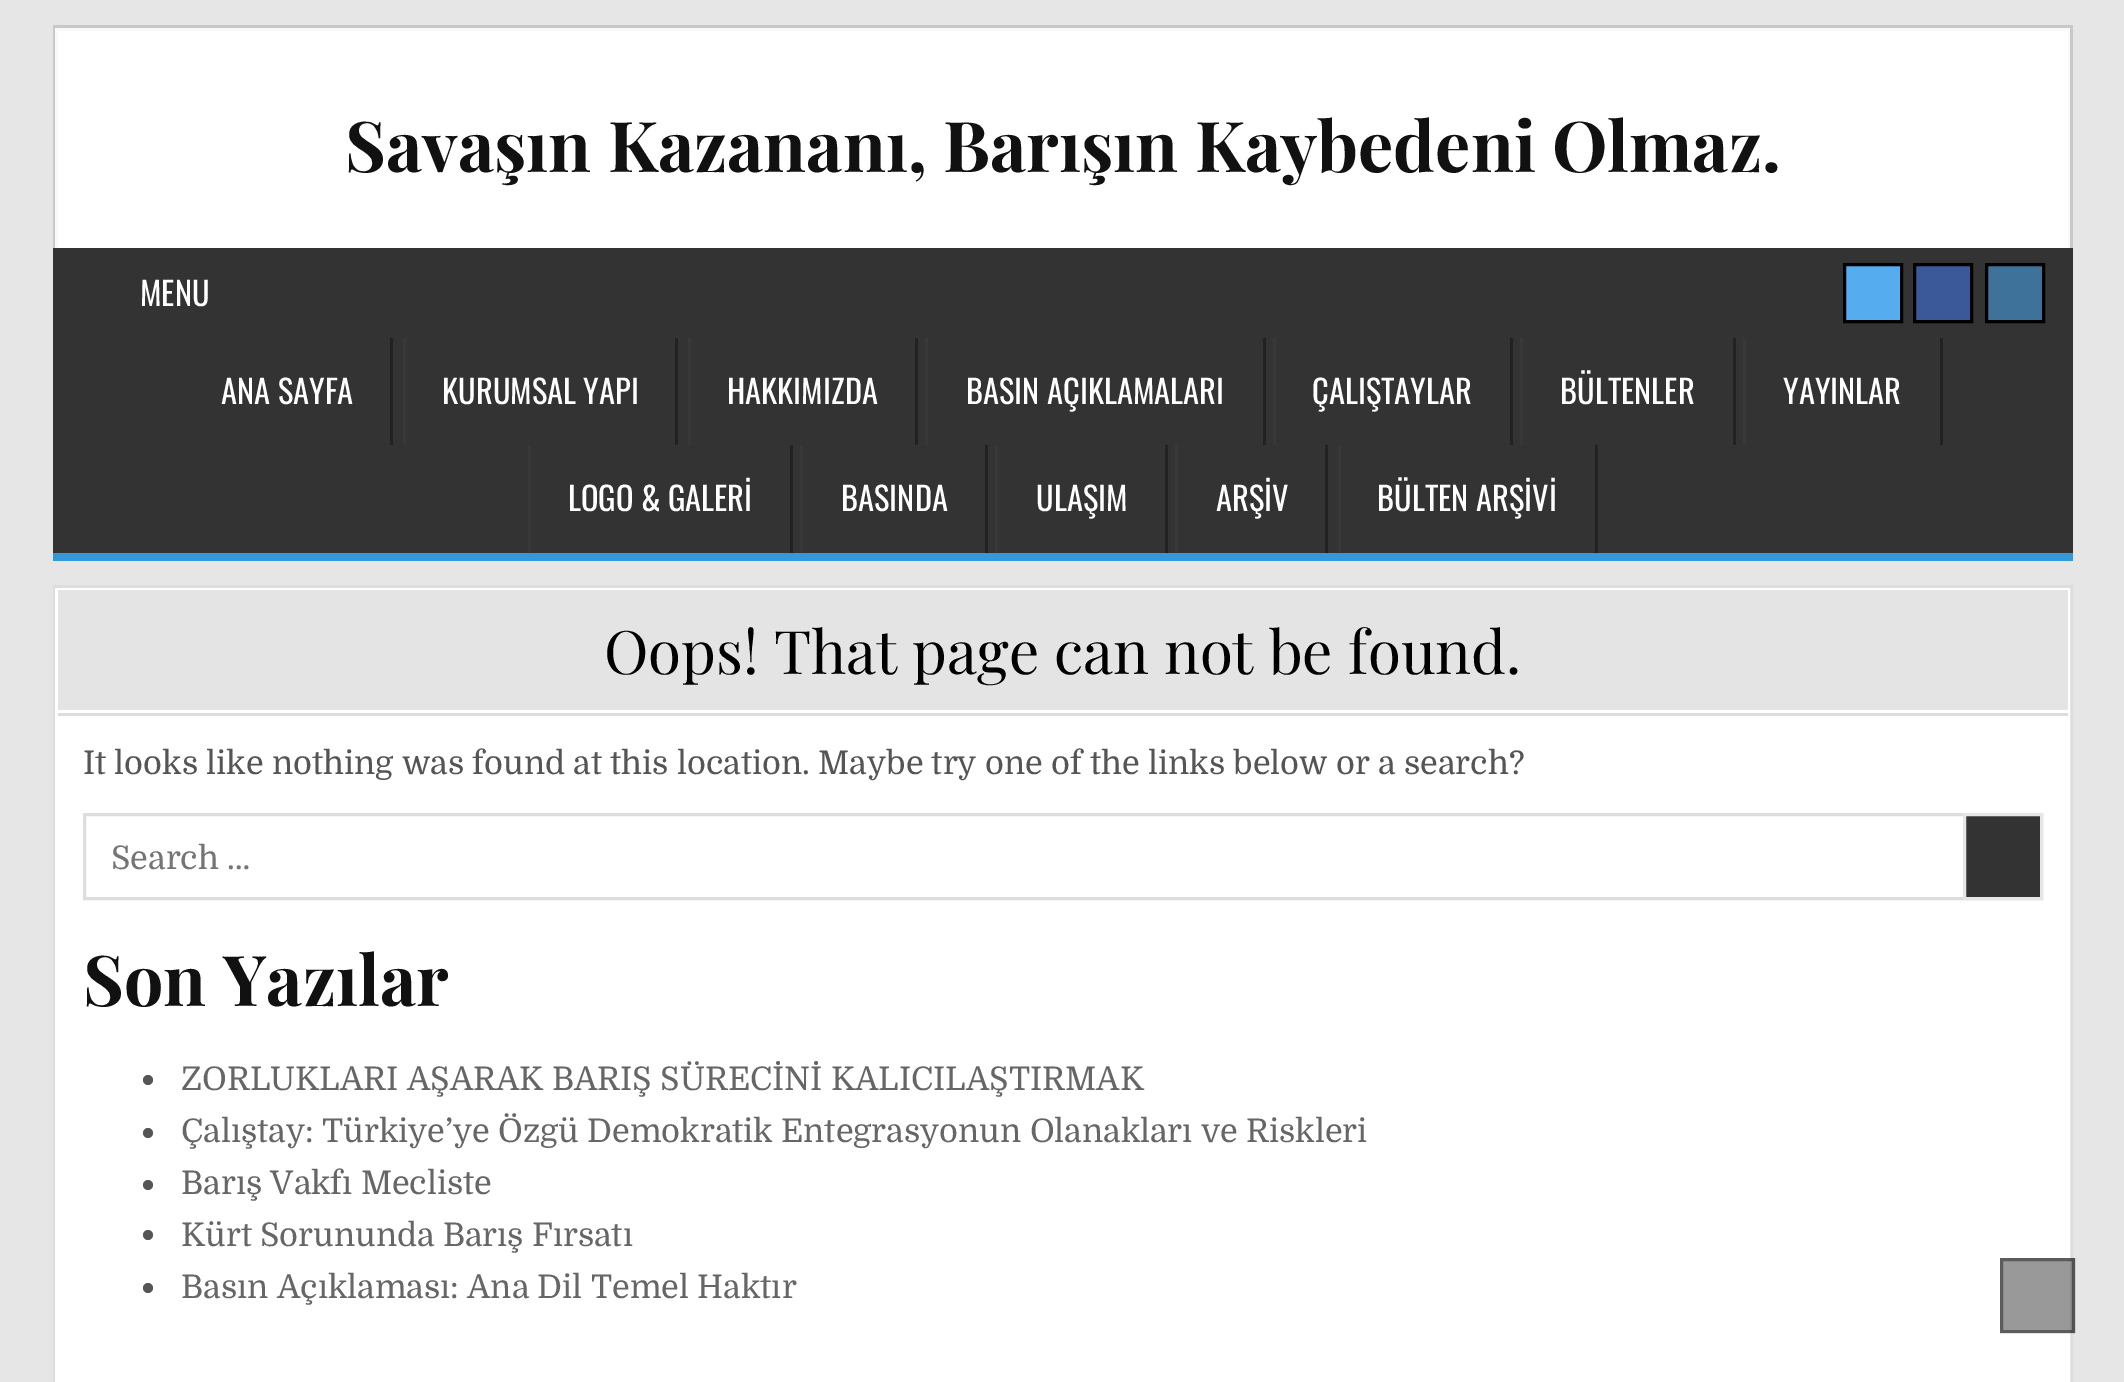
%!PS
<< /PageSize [2124 1382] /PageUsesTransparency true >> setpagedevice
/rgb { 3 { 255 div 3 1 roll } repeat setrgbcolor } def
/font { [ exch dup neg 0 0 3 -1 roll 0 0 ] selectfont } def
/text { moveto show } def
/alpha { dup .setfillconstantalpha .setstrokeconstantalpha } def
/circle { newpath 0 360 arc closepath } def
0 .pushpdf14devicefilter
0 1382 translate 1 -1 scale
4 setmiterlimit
230 230 230 rgb
0 0 2124 1382 rectfill
255 255 255 rgb
58 31 2010 217 rectfill
200 200 200 rgb
53 25 2020 3 rectfill
2070 25 3 223 rectfill
53 25 3 223 rectfill
249 249 249 rgb
55 28 2015 3 rectfill
2068 28 2 220 rectfill
55 28 3 220 rectfill
51 51 51 rgb
53 248 2020 305 rectfill
52 152 219 rgb
53 553 2020 8 rectfill
85 172 238 rgb
1844.5 264.5 moveto 57 0 rlineto 0 57 rlineto -57 0 rlineto closepath gsave fill grestore
0 0 0 rgb
3 setlinewidth
stroke
59 89 152 rgb
1914.5 264.5 moveto 57 0 rlineto 0 57 rlineto -57 0 rlineto closepath gsave fill grestore
0 0 0 rgb
stroke
63 114 155 rgb
1986.5 264.5 moveto 57 0 rlineto 0 57 rlineto -57 0 rlineto closepath gsave fill grestore
0 0 0 rgb
stroke
34 34 34 rgb
390 338 3 107 rectfill
675 338 3 107 rectfill
56 56 56 rgb
403 338 3 107 rectfill
34 34 34 rgb
915 338 3 107 rectfill
56 56 56 rgb
688 338 3 107 rectfill
34 34 34 rgb
1263 338 3 107 rectfill
56 56 56 rgb
925 338 3 107 rectfill
34 34 34 rgb
1510 338 3 107 rectfill
56 56 56 rgb
1273 338 3 107 rectfill
34 34 34 rgb
1733 338 3 107 rectfill
56 56 56 rgb
1520 338 3 107 rectfill
34 34 34 rgb
1940 338 3 107 rectfill
56 56 56 rgb
1743 338 3 107 rectfill
34 34 34 rgb
790 445 3 108 rectfill
56 56 56 rgb
528 445 3 108 rectfill
34 34 34 rgb
985 445 3 108 rectfill
56 56 56 rgb
800 445 3 108 rectfill
34 34 34 rgb
1165 445 3 108 rectfill
56 56 56 rgb
995 445 3 108 rectfill
34 34 34 rgb
1325 445 3 108 rectfill
56 56 56 rgb
1175 445 3 108 rectfill
34 34 34 rgb
1595 445 3 108 rectfill
56 56 56 rgb
1338 445 3 108 rectfill
255 255 255 rgb
58 716 2009 666 rectfill
221 221 221 rgb
54.5 586.5 2017 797 rectstroke
255 255 255 rgb
56.5 589.5 2012 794 rectstroke
228 228 228 rgb
58 590 2010 120 rectfill
221 221 221 rgb
58 713 2010 3 rectfill
255 255 255 rgb
58 710 2010 3 rectfill
221 221 221 rgb
84.5 814.5 1957 84 rectstroke
51 51 51 rgb
1964.5 814.5 moveto 77 0 rlineto 0 84 rlineto -77 0 rlineto closepath gsave fill grestore
230 230 230 rgb
stroke
85 85 85 rgb
148 1080 5 circle fill
148 1133 5 circle fill
148 1185 5 circle fill
148 1235 5 circle fill
148 1288 5 circle fill
0.4 alpha
0 0 0 rgb
2000 1258 75 75 rectfill
2001.5 1259.5 72 72 rectstroke
/PlayfairDisplay-Bold 70 font
1 alpha
17 17 17 rgb
(Savaşın Kazananı, Barışın Kaybedeni Olmaz.) 345 172 text
/Oswald-Regular 32.5 font
255 255 255 rgb
(MENU) 140 306 text
(ANA SAYFA) 221 404 text
(KURUMSAL YAPI) 442 404 text
(HAKKIMIZDA) 727 404 text
(BASIN AÇIKLAMALARI) 966 404 text
(ÇALIŞTAYLAR) 1312 404 text
(BÜLTENLER) 1560 404 text
(YAYINLAR) 1783 404 text
(LOGO & GALERİ) 568 511 text
(BASINDA) 841 511 text
(ULAŞIM) 1036 511 text
(ARŞİV) 1216 511 text
(BÜLTEN ARŞİVİ) 1377 511 text
/PlayfairDisplay-Regular 60 font
0 0 0 rgb
(Oops! That page can not be found.) 604 674 text
/Domine-Regular 32.5 font
85 85 85 rgb
(It looks like nothing was found at this location. Maybe try one of the links below or a search?) 83 774 text
117 117 117 rgb
(Search …) 111 869 text
/PlayfairDisplay-Bold 70 font
17 17 17 rgb
(Son Yazılar) 83 1006 text
/Domine-Regular 32.5 font
102 102 102 rgb
(ZORLUKLARI AŞARAK BARIŞ SÜRECİNİ KALICILAŞTIRMAK) 181 1090 text
(Çalıştay: Türkiye’ye Özgü Demokratik Entegrasyonun Olanakları ve Riskleri) 181 1142 text
(Barış Vakfı Mecliste) 181 1194 text
(Kürt Sorununda Barış Fırsatı) 181 1246 text
(Basın Açıklaması: Ana Dil Temel Haktır) 181 1298 text
.poppdf14devicefilter showpage
